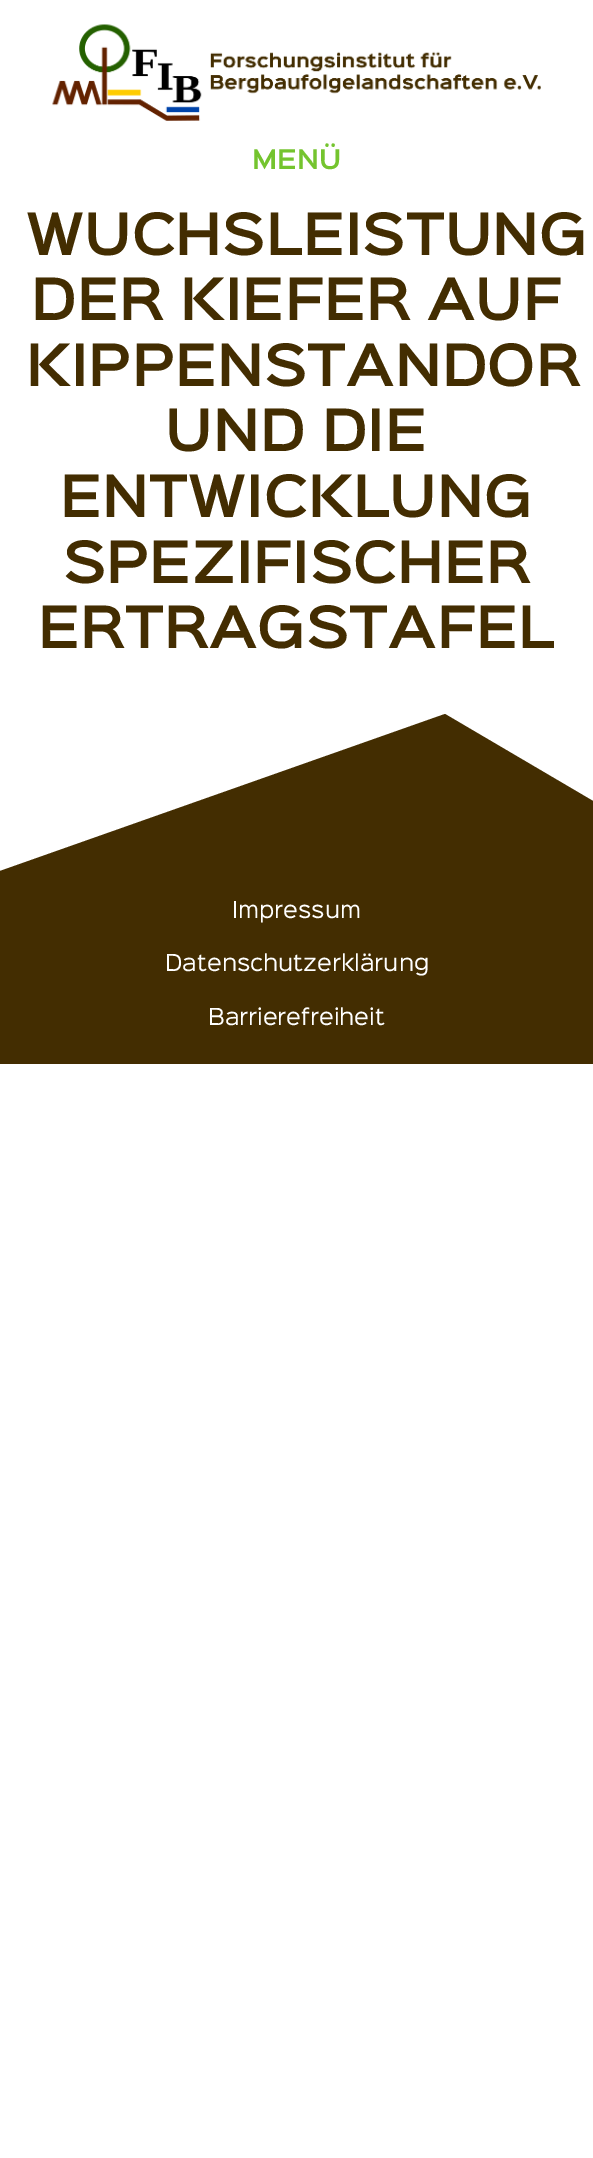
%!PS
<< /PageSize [593 2158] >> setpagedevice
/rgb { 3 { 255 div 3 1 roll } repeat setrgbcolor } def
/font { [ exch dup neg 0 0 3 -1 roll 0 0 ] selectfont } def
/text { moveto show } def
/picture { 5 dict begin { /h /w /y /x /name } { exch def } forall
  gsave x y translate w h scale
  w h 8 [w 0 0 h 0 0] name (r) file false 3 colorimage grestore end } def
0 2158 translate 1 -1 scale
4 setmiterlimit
255 255 255 rgb
0 0 593 2158 rectfill
(img_01.rgb) 52 24 489 97 picture
67 45 1 rgb
0 871 moveto 0 193 rlineto 593 0 rlineto 0 -263 rlineto -148 -87 rlineto closepath fill
/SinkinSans-SemiBold 24.5 font
116 196 46 rgb
(MENÜ) 252 169 text
/SinkinSans-SemiBold 52.5 font
67 45 1 rgb
(WUCHSLEISTUNG) 26 255 text
(DER KIEFER AUF) 31 320 text
(KIPPENSTANDOR) 26 386 text
(UND DIE) 165 451 text
(ENTWICKLUNG) 60 517 text
(SPEZIFISCHER) 63 583 text
(ERTRAGSTAFEL) 38 648 text
/SinkinSans-Regular 21 font
255 255 255 rgb
(Impressum) 232 918 text
(Datenschutzerklärung) 165 971 text
(Barrierefreiheit) 208 1025 text
showpage
